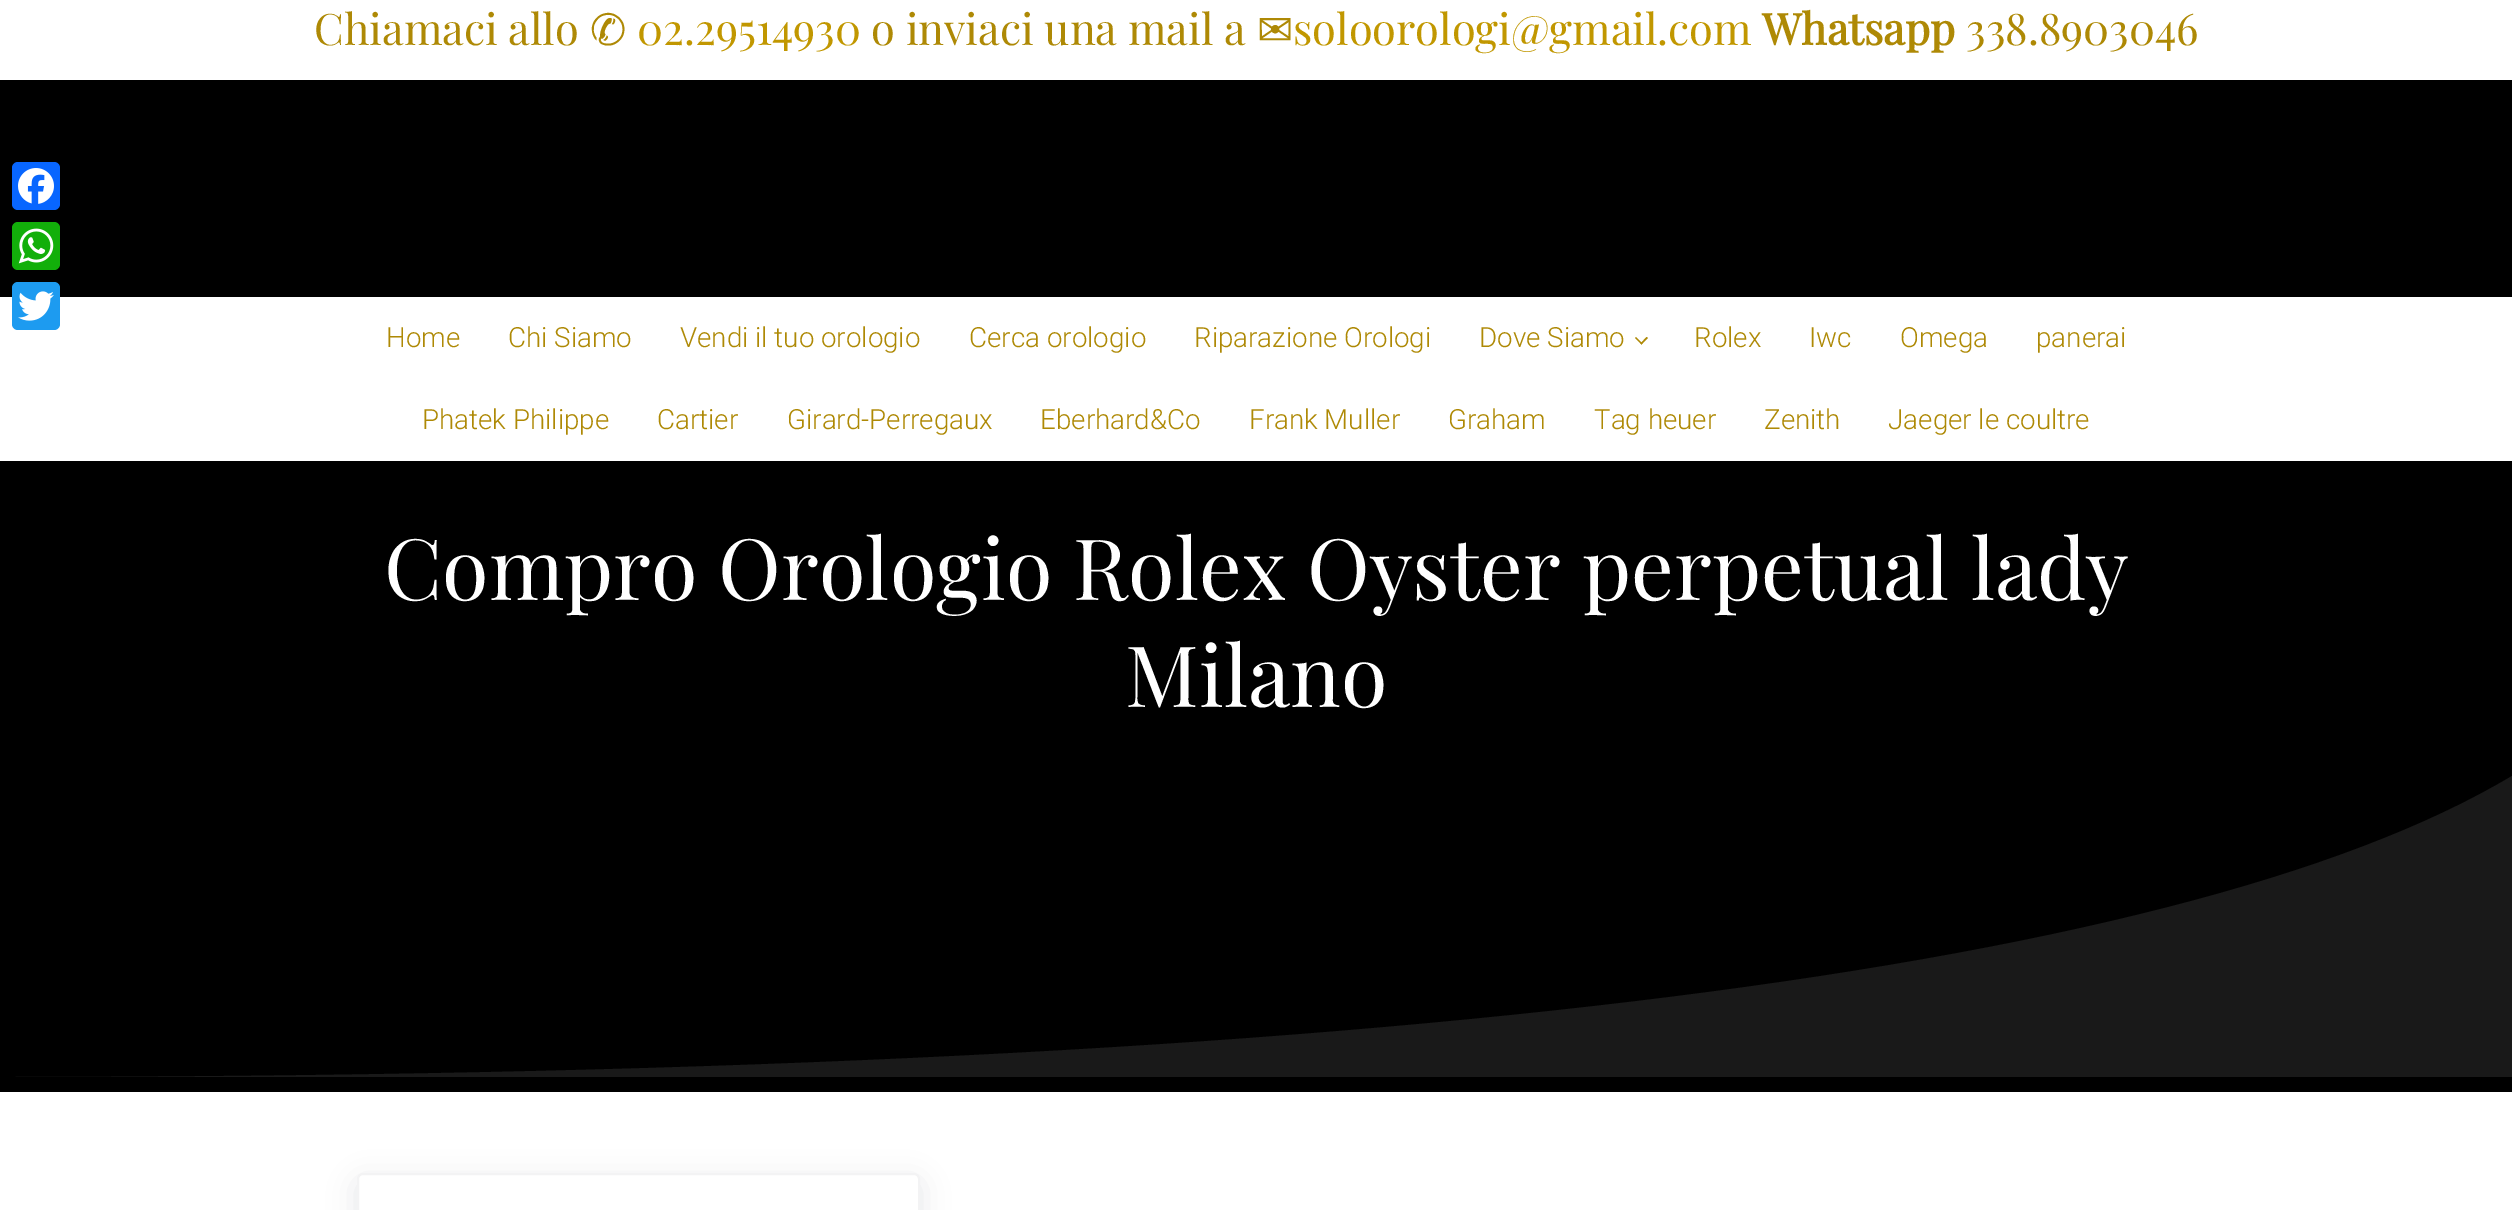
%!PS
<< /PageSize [2512 1210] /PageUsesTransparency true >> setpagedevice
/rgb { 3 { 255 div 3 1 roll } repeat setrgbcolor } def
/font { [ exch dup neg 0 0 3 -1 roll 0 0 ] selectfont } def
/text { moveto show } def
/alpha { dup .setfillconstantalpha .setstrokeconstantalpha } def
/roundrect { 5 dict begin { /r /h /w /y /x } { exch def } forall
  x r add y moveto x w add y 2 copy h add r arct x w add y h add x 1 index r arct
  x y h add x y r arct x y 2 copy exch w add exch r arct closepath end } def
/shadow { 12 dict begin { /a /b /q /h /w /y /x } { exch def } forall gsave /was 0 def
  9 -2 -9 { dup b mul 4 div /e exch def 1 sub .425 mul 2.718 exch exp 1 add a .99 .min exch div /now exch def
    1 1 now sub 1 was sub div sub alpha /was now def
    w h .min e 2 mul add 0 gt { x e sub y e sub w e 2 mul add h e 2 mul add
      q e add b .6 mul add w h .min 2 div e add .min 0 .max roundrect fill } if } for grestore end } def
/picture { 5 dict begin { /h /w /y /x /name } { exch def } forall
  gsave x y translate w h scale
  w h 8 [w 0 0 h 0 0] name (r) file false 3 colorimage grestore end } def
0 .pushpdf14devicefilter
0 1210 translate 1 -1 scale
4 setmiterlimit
255 255 255 rgb
0 0 2512 1210 rectfill
0 0 0 rgb
0 80 2512 217 rectfill
8 102 255 rgb
12 162 48 48 6 roundrect fill
(img_01.rgb) 18 168 36 36 picture
18 175 10 rgb
12 222 48 48 6 roundrect fill
(img_02.rgb) 18 228 36 36 picture
29 155 240 rgb
12 282 48 48 6 roundrect fill
(img_03.rgb) 18 291 36 30 picture
174 137 5 rgb
1646.5 337 moveto 1.5 1 rlineto -6.5 6.5 rlineto -1 -1 rlineto closepath fill
1636 337 moveto 6.5 6.5 rlineto -1 1 rlineto -6.5 -6.5 rlineto closepath fill
0 0 0 rgb
0 461 2512 631 rectfill
25 25 25 rgb
2512 1077 moveto -2512 0 rlineto 1340 0 2178 -101 2512 -301 rcurveto closepath fill
10 20 30 rgb
357 1181 563 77 6 14 0.1 shadow
255 255 255 rgb
358 1174 561 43 5 roundrect gsave fill grestore
243 243 244 rgb
2 setlinewidth
stroke
/PlayfairDisplay-Regular 43.4 font
174 137 5 rgb
(Chiamaci allo) 314 45 text
/DejaVuSans-Regular 43.4 font
(✆) 590 45 text
/PlayfairDisplay-Regular 43.4 font
193 151 0 rgb
(02.29514930) 637 45 text
174 137 5 rgb
(o inviaci una mail a) 871 45 text
/DejaVuSans-Regular 43.4 font
(✉) 1257 45 text
/PlayfairDisplay-Regular 43.4 font
193 151 0 rgb
(soloorologi@gmail.com) 1293 45 text
/PlayfairDisplay-Bold 43.4 font
174 137 5 rgb
(Whatsapp) 1762 45 text
/PlayfairDisplay-Regular 43.4 font
(338.8903046) 1966 45 text
/Roboto-Light 27.75 font
(Home) 386 347 text
(Chi Siamo) 508 347 text
(Vendi il tuo orologio) 680 347 text
(Cerca orologio) 969 347 text
(Riparazione Orologi) 1194 347 text
(Dove Siamo) 1479 347 text
(Rolex) 1694 347 text
(Iwc) 1809 347 text
(Omega) 1900 347 text
(panerai) 2036 347 text
(Phatek Philippe) 422 429 text
(Cartier) 657 429 text
(Girard-Perregaux) 787 429 text
(Eberhard&Co) 1040 429 text
(Frank Muller) 1249 429 text
(Graham) 1448 429 text
(Tag heuer) 1594 429 text
(Zenith) 1764 429 text
(Jaeger le coultre) 1888 429 text
/PlayfairDisplay-Regular 84.75 font
255 255 255 rgb
(Compro Orologio Rolex Oyster perpetual lady) 384 600 text
(Milano) 1125 707 text
.poppdf14devicefilter showpage
